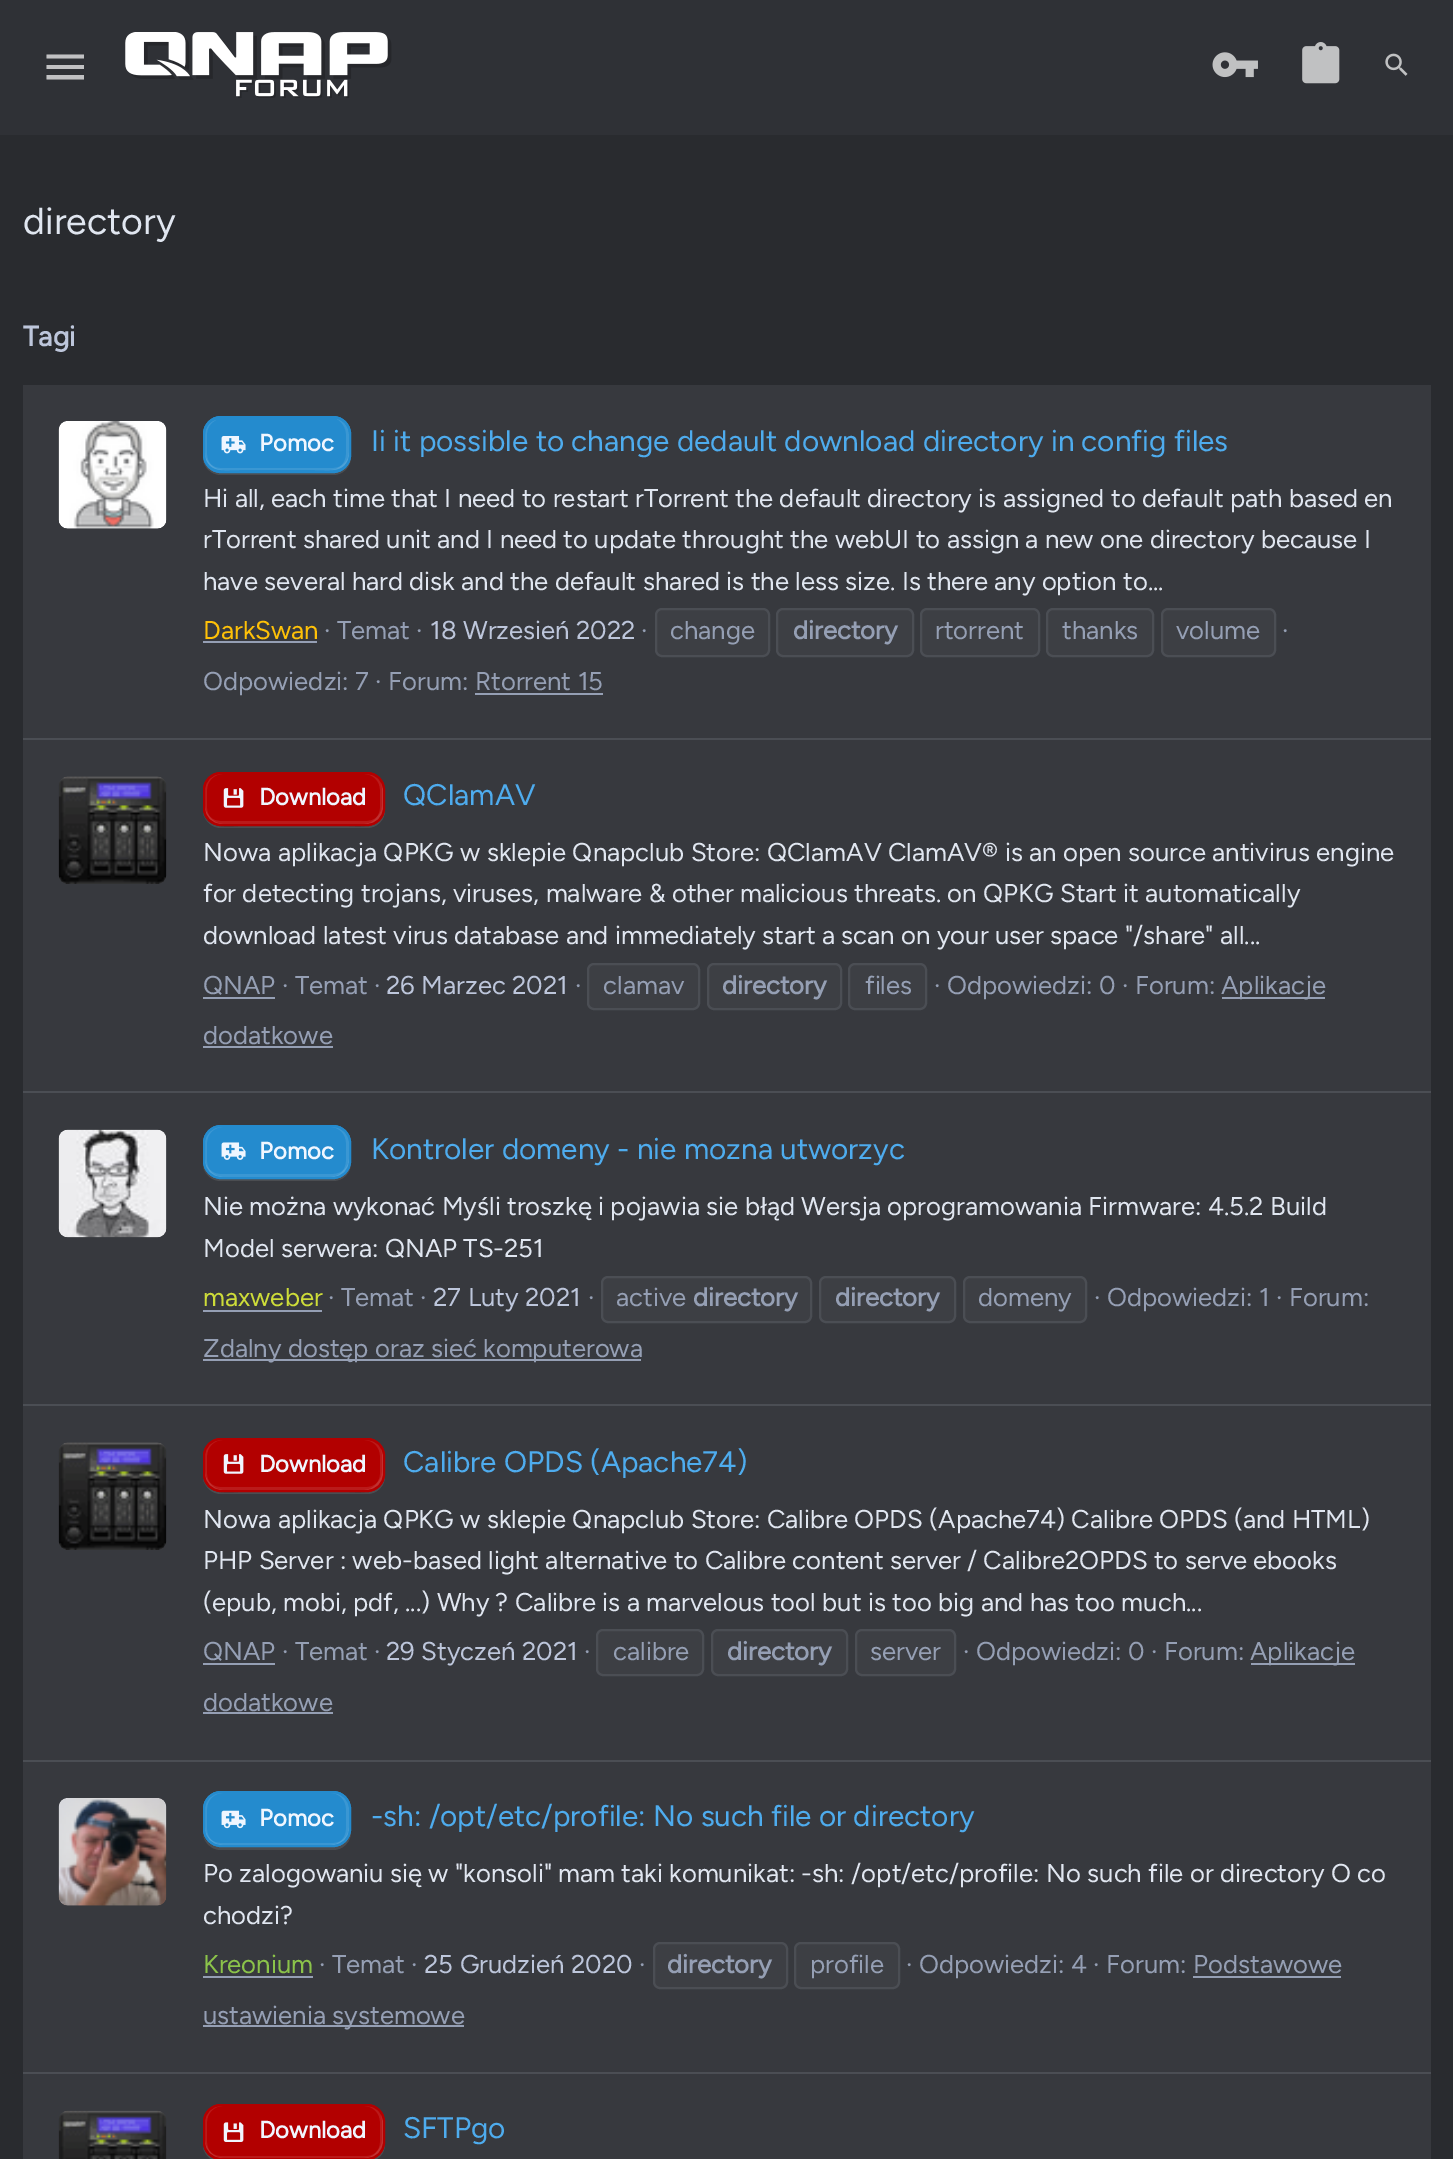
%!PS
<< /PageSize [1453 2159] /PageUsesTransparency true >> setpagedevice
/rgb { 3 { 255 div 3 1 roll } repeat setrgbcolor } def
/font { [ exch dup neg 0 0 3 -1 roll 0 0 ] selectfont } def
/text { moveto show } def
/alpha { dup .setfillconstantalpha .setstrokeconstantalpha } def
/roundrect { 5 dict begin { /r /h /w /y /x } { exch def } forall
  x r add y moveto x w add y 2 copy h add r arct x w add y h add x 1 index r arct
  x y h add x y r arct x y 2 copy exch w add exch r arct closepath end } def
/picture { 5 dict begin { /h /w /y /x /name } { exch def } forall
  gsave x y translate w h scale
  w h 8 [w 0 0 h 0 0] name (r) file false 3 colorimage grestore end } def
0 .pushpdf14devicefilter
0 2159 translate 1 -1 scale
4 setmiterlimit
41 43 47 rgb
0 0 1453 2159 rectfill
47 49 54 rgb
0 0 1453 135 rectfill
193 193 195 rgb
46.5 54.5 moveto 37.5 0 rlineto 0 4 rlineto -37.5 0 rlineto closepath 46.5 65 moveto 37.5 0 rlineto 0 4 rlineto -37.5 0 rlineto closepath 46.5 75 moveto 37.5 0 rlineto 0 4.5 rlineto -37.5 0 rlineto closepath fill
(img_01.rgb) 125 32 267 66 picture
(img_02.rgb) 1212 52 46 26 picture
(img_03.rgb) 1302 42 38 42 picture
(img_04.rgb) 1385 53 23 23 picture
55 57 62 rgb
23 385 1408 1774 rectfill
(img_05.rgb) 58 421 109 108 picture
75 77 81 rgb
203 459 moveto 1 9 9 16 18 16 rcurveto 112 0 rlineto 10 0 18 -8 18 -18 rcurveto 0 -3 rlineto 0 10 -8 18 -18 18 rcurveto -113 0 rlineto -8 0 -15 -5 -17 -13 rcurveto closepath fill
36 139 206 rgb
203 416 148 57 18 roundrect fill
58 151 211 rgb
205 452 moveto 0 22 19 18 35 18 rcurveto 74 0 rlineto 16 0 35 4 35 -18 rcurveto 0 9 -7 16 -16 16 rcurveto -113 0 rlineto -8 0 -15 -7 -15 -16 rcurveto closepath fill
0.1 alpha
255 255 255 rgb
331 470 moveto 8 0 16 -4 18 -13 rcurveto 0 -13 rlineto 0 -10 1 -21 -12 -25 rcurveto 5 3 9 9 9 15 rcurveto 0 20 rlineto 0 9 -7 16 -15 16 rcurveto closepath fill
216 420 moveto -12 4 -11 15 -11 24 rcurveto 0 13 rlineto 2 9 10 13 18 13 rcurveto -9 0 -16 -7 -16 -16 rcurveto 0 -20 rlineto 0 -6 3 -11 9 -14 rcurveto closepath fill
1 alpha
36 139 206 rgb
2 setlinewidth
204 417 146 55 17 roundrect stroke
(img_06.rgb) 221 436 25 18 picture
149 159 180 rgb
203 641 114 2 rectfill
61 63 68 rgb
656 609 113 47 6 roundrect gsave fill grestore
75 78 84 rgb
stroke
61 63 68 rgb
777 609 136 47 6 roundrect gsave fill grestore
75 78 84 rgb
stroke
61 63 68 rgb
921 609 118 47 6 roundrect gsave fill grestore
75 78 84 rgb
stroke
61 63 68 rgb
1047 609 106 47 6 roundrect gsave fill grestore
75 78 84 rgb
stroke
61 63 68 rgb
1162 609 113 47 6 roundrect gsave fill grestore
75 78 84 rgb
stroke
149 159 180 rgb
475 693 128 2 rectfill
75 78 84 rgb
23 738 1408 2 rectfill
(img_07.rgb) 58 776 109 108 picture
75 77 81 rgb
203 813 moveto 2 8 9 15 18 15 rcurveto 146 0 rlineto 10 0 18 -8 18 -18 rcurveto 0 -21 rlineto -1 22 rlineto -4 20 -28 15 -42 15 rcurveto -97 0 rlineto -13 0 -37 5 -42 -13 rcurveto closepath fill
178 0 0 rgb
203 772 182 54 18 roundrect fill
186 26 26 rgb
205 806 moveto 0 2 rlineto 0 9 7 16 16 16 rcurveto 146 0 rlineto 9 0 16 -7 16 -16 rcurveto 0 -18 rlineto 0 -3 -1 -5 -2 -8 rcurveto 1 2 1 4 1 6 rcurveto 0 18 rlineto 0 8 -7 15 -15 15 rcurveto -147 0 rlineto -8 0 -15 -7 -15 -15 rcurveto closepath fill
0.1 alpha
255 255 255 rgb
364 824 moveto 9 0 17 -3 19 -13 rcurveto 0 -24 rlineto -2 -10 -10 -13 -19 -13 rcurveto 9 0 16 7 16 16 rcurveto 0 18 rlineto 0 8 -7 16 -16 16 rcurveto closepath fill
221 774 moveto -9 0 -16 7 -16 16 rcurveto 0 18 rlineto 0 9 7 16 16 16 rcurveto 2 0 rlineto -9 0 -16 -8 -16 -16 rcurveto 0 -18 rlineto 0 -9 7 -16 16 -16 rcurveto closepath fill
1 alpha
178 0 0 rgb
204 773 180 52 17 roundrect stroke
(img_08.rgb) 223 788 21 20 picture
149 159 180 rgb
203 997 72 2 rectfill
61 63 68 rgb
588 964 111 45 6 roundrect gsave fill grestore
75 78 84 rgb
stroke
61 63 68 rgb
708 964 133 45 6 roundrect gsave fill grestore
75 78 84 rgb
stroke
61 63 68 rgb
849 964 77 45 6 roundrect gsave fill grestore
75 78 84 rgb
stroke
149 159 180 rgb
1222 997 103 2 rectfill
203 1046 130 2 rectfill
75 78 84 rgb
23 1091 1408 2 rectfill
(img_09.rgb) 58 1129 109 109 picture
75 77 81 rgb
203 1166 moveto 2 9 9 15 18 15 rcurveto 112 0 rlineto 10 0 18 -8 18 -18 rcurveto 0 -2 rlineto 0 10 -8 18 -18 18 rcurveto -113 0 rlineto -8 0 -14 -5 -17 -13 rcurveto closepath fill
36 139 206 rgb
203 1125 148 54 18 roundrect fill
58 151 211 rgb
205 1159 moveto 0 22 19 18 35 18 rcurveto 74 0 rlineto 16 0 35 4 35 -18 rcurveto 0 8 -7 15 -16 15 rcurveto -113 0 rlineto -8 0 -15 -7 -15 -15 rcurveto closepath fill
0.1 alpha
255 255 255 rgb
331 1177 moveto 8 0 16 -4 18 -13 rcurveto 0 -24 rlineto -2 -9 -10 -13 -18 -13 rcurveto 8 0 15 7 15 16 rcurveto 0 18 rlineto 0 9 -7 16 -15 16 rcurveto closepath fill
221 1127 moveto -9 0 -16 7 -16 16 rcurveto 0 18 rlineto 0 9 7 16 16 16 rcurveto 2 0 rlineto -9 0 -16 -7 -16 -16 rcurveto 0 -18 rlineto 0 -9 7 -16 16 -16 rcurveto closepath fill
1 alpha
36 139 206 rgb
204 1126 146 52 17 roundrect stroke
(img_10.rgb) 221 1142 25 18 picture
149 159 180 rgb
203 1310 119 2 rectfill
61 63 68 rgb
602 1277 209 45 6 roundrect gsave fill grestore
75 78 84 rgb
stroke
61 63 68 rgb
820 1277 135 45 6 roundrect gsave fill grestore
75 78 84 rgb
stroke
61 63 68 rgb
964 1277 122 45 6 roundrect gsave fill grestore
75 78 84 rgb
stroke
149 159 180 rgb
203 1359 438 2 rectfill
75 78 84 rgb
23 1404 1408 2 rectfill
(img_11.rgb) 58 1442 109 108 picture
75 77 81 rgb
203 1479 moveto 2 8 9 15 18 15 rcurveto 146 0 rlineto 10 0 18 -8 18 -18 rcurveto 0 -21 rlineto -1 22 rlineto -4 20 -28 15 -42 15 rcurveto -97 0 rlineto -13 0 -37 5 -42 -13 rcurveto closepath fill
178 0 0 rgb
203 1438 182 54 18 roundrect fill
186 26 26 rgb
205 1472 moveto 0 2 rlineto 0 9 7 16 16 16 rcurveto 146 0 rlineto 9 0 16 -7 16 -16 rcurveto 0 -18 rlineto 0 -3 -1 -5 -2 -8 rcurveto 1 2 1 4 1 6 rcurveto 0 18 rlineto 0 8 -7 15 -15 15 rcurveto -147 0 rlineto -8 0 -15 -7 -15 -15 rcurveto closepath fill
0.1 alpha
255 255 255 rgb
364 1490 moveto 9 0 17 -3 19 -13 rcurveto 0 -24 rlineto -2 -10 -10 -13 -19 -13 rcurveto 9 0 16 7 16 16 rcurveto 0 18 rlineto 0 8 -7 16 -16 16 rcurveto closepath fill
221 1440 moveto -9 0 -16 7 -16 16 rcurveto 0 18 rlineto 0 9 7 16 16 16 rcurveto 2 0 rlineto -9 0 -16 -8 -16 -16 rcurveto 0 -18 rlineto 0 -9 7 -16 16 -16 rcurveto closepath fill
1 alpha
178 0 0 rgb
204 1439 180 52 17 roundrect stroke
(img_08.rgb) 223 1454 21 20 picture
149 159 180 rgb
203 1663 72 2 rectfill
61 63 68 rgb
597 1630 106 45 6 roundrect gsave fill grestore
75 78 84 rgb
stroke
61 63 68 rgb
712 1630 135 45 6 roundrect gsave fill grestore
75 78 84 rgb
stroke
61 63 68 rgb
856 1630 99 45 6 roundrect gsave fill grestore
75 78 84 rgb
stroke
149 159 180 rgb
1251 1663 104 2 rectfill
203 1712 130 2 rectfill
75 78 84 rgb
23 1760 1408 2 rectfill
(img_12.rgb) 58 1798 109 108 picture
75 77 81 rgb
203 1834 moveto 1 9 9 16 18 16 rcurveto 112 0 rlineto 10 0 18 -8 18 -18 rcurveto 0 -3 rlineto 0 10 -8 18 -18 18 rcurveto -113 0 rlineto -8 0 -15 -5 -17 -13 rcurveto closepath fill
36 139 206 rgb
203 1791 148 56 18 roundrect fill
58 151 211 rgb
205 1827 moveto 0 22 19 18 35 18 rcurveto 74 0 rlineto 16 0 35 4 35 -18 rcurveto 0 9 -7 16 -16 16 rcurveto -113 0 rlineto -8 0 -15 -7 -15 -16 rcurveto closepath fill
0.1 alpha
255 255 255 rgb
331 1845 moveto 8 0 16 -4 18 -13 rcurveto 0 -26 rlineto -2 -9 -10 -13 -18 -13 rcurveto 8 0 15 7 15 16 rcurveto 0 20 rlineto 0 9 -7 16 -15 16 rcurveto closepath fill
221 1793 moveto -9 0 -16 7 -16 16 rcurveto 0 20 rlineto 0 9 7 16 16 16 rcurveto 2 0 rlineto -9 0 -16 -7 -16 -16 rcurveto 0 -20 rlineto 0 -9 7 -16 16 -16 rcurveto closepath fill
1 alpha
36 139 206 rgb
204 1792 146 54 17 roundrect stroke
(img_13.rgb) 221 1810 25 19 picture
149 159 180 rgb
203 1976 110 2 rectfill
61 63 68 rgb
654 1943 133 45 6 roundrect gsave fill grestore
75 78 84 rgb
stroke
61 63 68 rgb
795 1943 104 45 6 roundrect gsave fill grestore
75 78 84 rgb
stroke
149 159 180 rgb
1193 1976 148 2 rectfill
203 2025 261 2 rectfill
75 78 84 rgb
23 2072 1408 2 rectfill
(img_14.rgb) 58 2110 109 49 picture
75 77 81 rgb
203 2147 moveto 2 9 9 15 18 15 rcurveto 146 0 rlineto 10 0 18 -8 18 -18 rcurveto 0 -23 rlineto -1 25 rlineto -4 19 -28 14 -42 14 rcurveto -97 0 rlineto -13 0 -36 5 -42 -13 rcurveto closepath fill
178 0 0 rgb
203 2104 182 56 18 roundrect fill
186 26 26 rgb
205 2140 moveto 0 2 rlineto 0 9 7 16 16 16 rcurveto 146 0 rlineto 9 0 16 -7 16 -16 rcurveto 0 -20 rlineto 0 -3 -1 -5 -2 -8 rcurveto 1 2 1 4 1 6 rcurveto 0 20 rlineto 0 8 -7 16 -15 16 rcurveto -147 0 rlineto -8 0 -15 -8 -15 -16 rcurveto closepath fill
0.1 alpha
255 255 255 rgb
364 2158 moveto 9 0 17 -3 19 -13 rcurveto 0 -26 rlineto -2 -10 -10 -13 -19 -13 rcurveto 9 0 16 7 16 16 rcurveto 0 20 rlineto 0 9 -7 16 -16 16 rcurveto closepath fill
221 2106 moveto -9 0 -16 7 -16 16 rcurveto 0 20 rlineto 0 9 7 16 16 16 rcurveto 2 0 rlineto -9 0 -16 -7 -16 -16 rcurveto 0 -20 rlineto 0 -9 7 -16 16 -16 rcurveto closepath fill
1 alpha
178 0 0 rgb
204 2105 180 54 17 roundrect stroke
(img_15.rgb) 223 2122 21 20 picture
/Figtree-Light 37.5 font
224 230 240 rgb
(directory) 23 234 text
gsave
23 315 51 43 rectclip
/Figtree-Bold 28 font
189 198 219 rgb
(Tagi) 23 346 text
grestore
/Figtree-Bold 23.75 font
240 246 255 rgb
(Pomoc) 259 451 text
/Figtree-Light 29.7 font
78 172 238 rgb
(Ii it possible to change dedault download directory in config files) 371 451 text
/Figtree-Light 25.75 font
224 230 240 rgb
(Hi all, each time that I need to restart rTorrent the default directory is assigned to default path based en) 203 507 text
(rTorrent shared unit and I need to update throught the webUI to assign a new one directory because I) 203 548 text
(have several hard disk and the default shared is the less size. Is there any option to...) 203 590 text
255 193 7 rgb
(DarkSwan) 203 639 text
149 159 180 rgb
(· Temat ·) 324 639 text
189 198 219 rgb
(18 Wrzesień 2022) 430 639 text
149 159 180 rgb
(·) 641 639 text
(change) 670 639 text
/Figtree-Bold 25.75 font
(directory) 793 639 text
/Figtree-Light 25.75 font
(rtorrent) 935 639 text
(thanks) 1062 639 text
(volume) 1176 639 text
(·) 1282 639 text
(Odpowiedzi: 7 · Forum: Rtorrent 15) 203 690 text
/Figtree-Bold 23.75 font
240 246 255 rgb
(Download) 259 805 text
/Figtree-Light 29.7 font
78 172 238 rgb
(QClamAV) 403 805 text
/Figtree-Light 25.75 font
224 230 240 rgb
(Nowa aplikacja QPKG w sklepie Qnapclub Store: QClamAV ClamAV® is an open source antivirus engine) 203 861 text
(for detecting trojans, viruses, malware & other malicious threats. on QPKG Start it automatically) 203 902 text
(download latest virus database and immediately start a scan on your user space "/share" all...) 203 944 text
149 159 180 rgb
(QNAP · Temat ·) 203 994 text
189 198 219 rgb
(26 Marzec 2021) 386 994 text
149 159 180 rgb
(·) 575 994 text
(clamav) 603 994 text
/Figtree-Bold 25.75 font
(directory) 722 994 text
/Figtree-Light 25.75 font
(files) 865 994 text
(· Odpowiedzi: 0 · Forum:) 934 994 text
(Aplikacje) 1221 994 text
(dodatkowe) 203 1044 text
/Figtree-Bold 23.75 font
240 246 255 rgb
(Pomoc) 259 1159 text
/Figtree-Light 29.7 font
78 172 238 rgb
(Kontroler domeny - nie mozna utworzyc) 371 1159 text
/Figtree-Light 25.75 font
224 230 240 rgb
(Nie można wykonać Myśli troszkę i pojawia sie błąd Wersja oprogramowania Firmware: 4.5.2 Build) 203 1215 text
(Model serwera: QNAP TS-251) 203 1257 text
205 220 57 rgb
(maxweber) 203 1306 text
149 159 180 rgb
(· Temat ·) 328 1306 text
189 198 219 rgb
(27 Luty 2021) 433 1306 text
149 159 180 rgb
(·) 588 1306 text
(active) 616 1306 text
/Figtree-Bold 25.75 font
(directory) 693 1306 text
(directory) 835 1306 text
/Figtree-Light 25.75 font
(domeny) 978 1306 text
(· Odpowiedzi: 1 · Forum:) 1094 1306 text
(Zdalny dostęp oraz sieć komputerowa) 203 1357 text
/Figtree-Bold 23.75 font
240 246 255 rgb
(Download) 259 1472 text
/Figtree-Light 29.7 font
78 172 238 rgb
(Calibre OPDS \(Apache74\)) 403 1472 text
/Figtree-Light 25.75 font
224 230 240 rgb
(Nowa aplikacja QPKG w sklepie Qnapclub Store: Calibre OPDS \(Apache74\) Calibre OPDS \(and HTML\)) 203 1528 text
(PHP Server : web-based light alternative to Calibre content server / Calibre2OPDS to serve ebooks) 203 1569 text
(\(epub, mobi, pdf, ...\) Why ? Calibre is a marvelous tool but is too big and has too much...) 203 1611 text
149 159 180 rgb
(QNAP · Temat ·) 203 1660 text
189 198 219 rgb
(29 Styczeń 2021) 386 1660 text
149 159 180 rgb
(·) 584 1660 text
(calibre) 613 1660 text
/Figtree-Bold 25.75 font
(directory) 727 1660 text
/Figtree-Light 25.75 font
(server) 870 1660 text
(· Odpowiedzi: 0 · Forum:) 963 1660 text
(Aplikacje) 1250 1660 text
(dodatkowe) 203 1711 text
/Figtree-Bold 23.75 font
240 246 255 rgb
(Pomoc) 259 1826 text
/Figtree-Light 29.7 font
78 172 238 rgb
(-sh: /opt/etc/profile: No such file or directory) 371 1826 text
/Figtree-Light 25.75 font
224 230 240 rgb
(Po zalogowaniu się w "konsoli" mam taki komunikat: -sh: /opt/etc/profile: No such file or directory O co) 203 1882 text
(chodzi?) 203 1924 text
139 195 74 rgb
(Kreonium) 203 1973 text
149 159 180 rgb
(· Temat ·) 319 1973 text
189 198 219 rgb
(25 Grudzień 2020) 424 1973 text
149 159 180 rgb
(·) 639 1973 text
/Figtree-Bold 25.75 font
(directory) 667 1973 text
/Figtree-Light 25.75 font
(profile) 810 1973 text
(· Odpowiedzi: 4 · Forum: Podstawowe) 906 1973 text
(ustawienia systemowe) 203 2024 text
/Figtree-Bold 23.75 font
240 246 255 rgb
(Download) 259 2138 text
/Figtree-Light 29.7 font
78 172 238 rgb
(SFTPgo) 403 2138 text
.poppdf14devicefilter showpage
